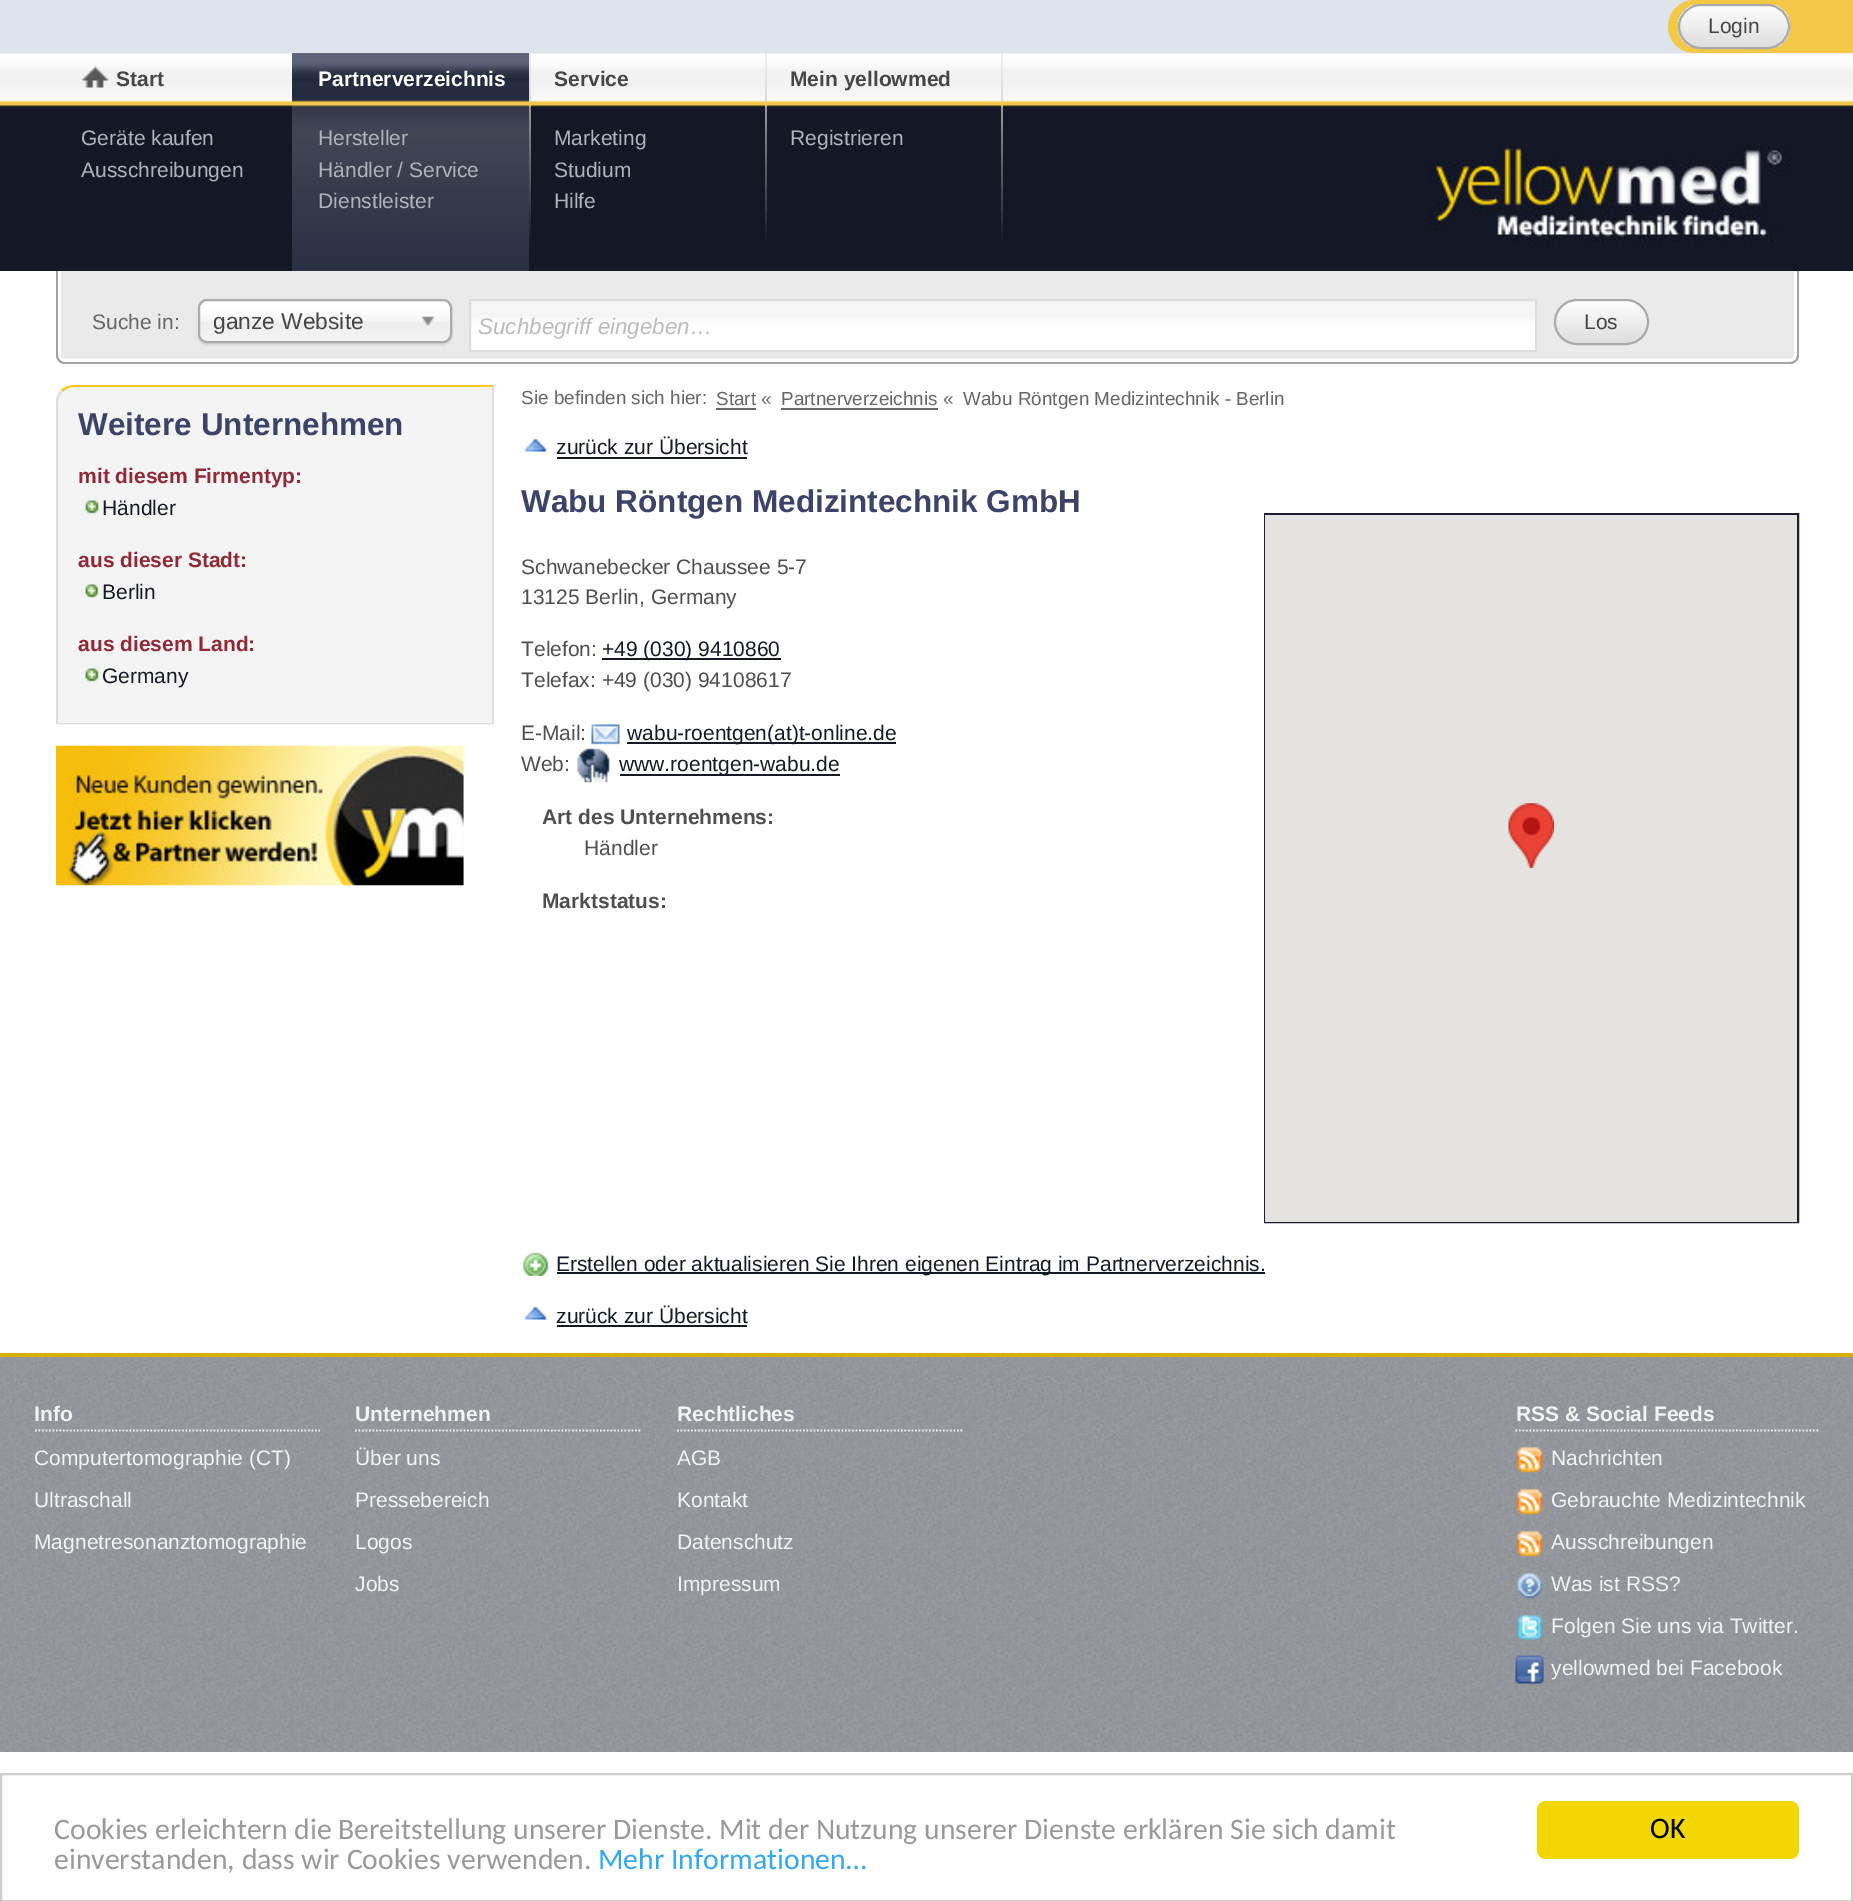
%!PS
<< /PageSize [1853 1901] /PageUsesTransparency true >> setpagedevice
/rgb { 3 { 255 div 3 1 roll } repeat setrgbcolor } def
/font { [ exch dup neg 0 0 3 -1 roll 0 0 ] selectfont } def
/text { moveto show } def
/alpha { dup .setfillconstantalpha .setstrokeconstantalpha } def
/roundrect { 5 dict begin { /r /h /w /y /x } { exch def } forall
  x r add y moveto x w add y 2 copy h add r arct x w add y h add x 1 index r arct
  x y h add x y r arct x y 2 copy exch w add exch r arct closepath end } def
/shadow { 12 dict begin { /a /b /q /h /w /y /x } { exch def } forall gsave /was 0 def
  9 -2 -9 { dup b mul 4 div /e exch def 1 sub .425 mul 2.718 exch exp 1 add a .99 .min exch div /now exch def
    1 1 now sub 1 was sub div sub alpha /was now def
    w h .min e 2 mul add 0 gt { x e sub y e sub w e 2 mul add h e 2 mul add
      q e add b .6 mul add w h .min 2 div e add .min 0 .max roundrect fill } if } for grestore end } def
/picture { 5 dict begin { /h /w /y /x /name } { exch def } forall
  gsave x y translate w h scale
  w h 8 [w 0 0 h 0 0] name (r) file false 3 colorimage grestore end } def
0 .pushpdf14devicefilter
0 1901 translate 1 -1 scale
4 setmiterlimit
255 255 255 rgb
0 0 1853 1901 rectfill
221 228 236 rgb
0 0 1694 53 rectfill
244 200 71 rgb
1799 0 54 53 rectfill
1694.5 0 moveto 104.5 0 rlineto 0 53 rlineto -104.5 0 rlineto -14.5 0 -26.5 -12 -26.5 -26.5 rcurveto 0 -14.5 12 -26.5 26.5 -26.5 rcurveto closepath fill
gsave
1678 4 112 45 22.5 roundrect clip newpath
gsave 1678 5 moveto 112 0 rlineto 0 42 rlineto -112 0 rlineto closepath clip newpath
<< /ShadingType 2 /ColorSpace /DeviceRGB /Coords [1734 5.2 1734 47] /Extend [true true] /Function << /FunctionType 2 /Domain [0 1] /C0 [1 1 1] /C1 [0.867 0.867 0.867] /N 1 >> >> shfill grestore
grestore
170 170 170 rgb
2 setlinewidth
1679 5 110 43 21.5 roundrect stroke
gsave 0 53 moveto 1853 0 rlineto 0 218 rlineto -1853 0 rlineto closepath clip newpath
<< /ShadingType 2 /ColorSpace /DeviceRGB /Coords [927 52 927 271] /Extend [true true] /Function << /FunctionType 3 /Domain [0 1] /Functions [<< /FunctionType 2 /Domain [0 1] /C0 [0.82 0.82 0.855] /C1 [1 1 1] /N 1 >> << /FunctionType 2 /Domain [0 1] /C0 [1 1 1] /C1 [0.984 0.984 0.984] /N 1 >> << /FunctionType 2 /Domain [0 1] /C0 [0.984 0.984 0.984] /C1 [0.949 0.949 0.949] /N 1 >> << /FunctionType 2 /Domain [0 1] /C0 [0.949 0.949 0.949] /C1 [0.949 0.949 0.949] /N 1 >> << /FunctionType 2 /Domain [0 1] /C0 [0.949 0.949 0.949] /C1 [0.969 0.969 0.969] /N 1 >> << /FunctionType 2 /Domain [0 1] /C0 [0.969 0.969 0.969] /C1 [0.984 0.984 0.984] /N 1 >> << /FunctionType 2 /Domain [0 1] /C0 [0.98 0.98 0.98] /C1 [0.957 0.784 0.278] /N 1 >> << /FunctionType 2 /Domain [0 1] /C0 [0.957 0.784 0.278] /C1 [0.957 0.784 0.278] /N 1 >> << /FunctionType 2 /Domain [0 1] /C0 [0.957 0.784 0.278] /C1 [0.078 0.09 0.149] /N 1 >> << /FunctionType 2 /Domain [0 1] /C0 [0.078 0.09 0.149] /C1 [0.078 0.09 0.149] /N 1 >> << /FunctionType 2 /Domain [0 1] /C0 [0.078 0.09 0.149] /C1 [0.078 0.09 0.149] /N 1 >>] /Bounds [0.01 0.06 0.09 0.14 0.2 0.22 0.23 0.24 0.25 0.82] /Encode [0 1 0 1 0 1 0 1 0 1 0 1 0 1 0 1 0 1 0 1 0 1] >> >> shfill grestore
(img_01.rgb) 82 66 27 22 picture
gsave 292 53 moveto 237 0 rlineto 0 218 rlineto -237 0 rlineto closepath clip newpath
<< /ShadingType 2 /ColorSpace /DeviceRGB /Coords [410 52 410 271] /Extend [true true] /Function << /FunctionType 3 /Domain [0 1] /Functions [<< /FunctionType 2 /Domain [0 1] /C0 [0.455 0.471 0.553] /C1 [0.365 0.392 0.478] /N 1 >> << /FunctionType 2 /Domain [0 1] /C0 [0.365 0.392 0.478] /C1 [0.365 0.388 0.478] /N 1 >> << /FunctionType 2 /Domain [0 1] /C0 [0.365 0.388 0.478] /C1 [0.325 0.353 0.439] /N 1 >> << /FunctionType 2 /Domain [0 1] /C0 [0.325 0.353 0.439] /C1 [0.239 0.267 0.345] /N 1 >> << /FunctionType 2 /Domain [0 1] /C0 [0.239 0.267 0.345] /C1 [0.169 0.196 0.275] /N 1 >> << /FunctionType 2 /Domain [0 1] /C0 [0.169 0.196 0.275] /C1 [0.149 0.173 0.247] /N 1 >> << /FunctionType 2 /Domain [0 1] /C0 [0.129 0.149 0.224] /C1 [0.145 0.169 0.251] /N 1 >> << /FunctionType 2 /Domain [0 1] /C0 [0.145 0.169 0.251] /C1 [0.149 0.173 0.251] /N 1 >> << /FunctionType 2 /Domain [0 1] /C0 [0.149 0.173 0.251] /C1 [0.957 0.784 0.278] /N 1 >> << /FunctionType 2 /Domain [0 1] /C0 [0.957 0.784 0.278] /C1 [0.957 0.784 0.278] /N 1 >> << /FunctionType 2 /Domain [0 1] /C0 [0.957 0.784 0.278] /C1 [0.2 0.22 0.278] /N 1 >> << /FunctionType 2 /Domain [0 1] /C0 [0.2 0.22 0.278] /C1 [0.212 0.224 0.286] /N 1 >> << /FunctionType 2 /Domain [0 1] /C0 [0.212 0.224 0.286] /C1 [0.251 0.267 0.329] /N 1 >> << /FunctionType 2 /Domain [0 1] /C0 [0.251 0.267 0.329] /C1 [0.255 0.275 0.333] /N 1 >> << /FunctionType 2 /Domain [0 1] /C0 [0.255 0.275 0.333] /C1 [0.251 0.263 0.329] /N 1 >> << /FunctionType 2 /Domain [0 1] /C0 [0.251 0.263 0.329] /C1 [0.243 0.263 0.325] /N 1 >> << /FunctionType 2 /Domain [0 1] /C0 [0.243 0.263 0.325] /C1 [0.208 0.227 0.298] /N 1 >> << /FunctionType 2 /Domain [0 1] /C0 [0.208 0.227 0.298] /C1 [0.165 0.188 0.263] /N 1 >>] /Bounds [0.01 0.05 0.06 0.08 0.1 0.12 0.14 0.22 0.23 0.24 0.25 0.26 0.34 0.39 0.4 0.48 0.66] /Encode [0 1 0 1 0 1 0 1 0 1 0 1 0 1 0 1 0 1 0 1 0 1 0 1 0 1 0 1 0 1 0 1 0 1 0 1] >> >> shfill grestore
gsave 529 53 moveto 2 0 rlineto 0 189 rlineto -2 0 rlineto closepath clip newpath
<< /ShadingType 2 /ColorSpace /DeviceRGB /Coords [529 53 529 271] /Extend [true true] /Function << /FunctionType 3 /Domain [0 1] /Functions [<< /FunctionType 2 /Domain [0 1] /C0 [0.933 0.933 0.933] /C1 [0.867 0.867 0.867] /N 1 >> << /FunctionType 2 /Domain [0 1] /C0 [0.867 0.867 0.867] /C1 [0.957 0.784 0.278] /N 1 >> << /FunctionType 2 /Domain [0 1] /C0 [0.957 0.784 0.278] /C1 [0.957 0.784 0.278] /N 1 >> << /FunctionType 2 /Domain [0 1] /C0 [0.957 0.784 0.278] /C1 [0.596 0.596 0.596] /N 1 >> << /FunctionType 2 /Domain [0 1] /C0 [0.596 0.596 0.596] /C1 [0.078 0.09 0.149] /N 1 >> << /FunctionType 2 /Domain [0 1] /C0 [0.078 0.09 0.149] /C1 [0.078 0.09 0.149] /N 1 >>] /Bounds [0.22 0.23 0.24 0.25 0.88] /Encode [0 1 0 1 0 1 0 1 0 1 0 1] >> >> shfill grestore
gsave 765 53 moveto 2 0 rlineto 0 189 rlineto -2 0 rlineto closepath clip newpath
<< /ShadingType 2 /ColorSpace /DeviceRGB /Coords [766 53 766 271] /Extend [true true] /Function << /FunctionType 3 /Domain [0 1] /Functions [<< /FunctionType 2 /Domain [0 1] /C0 [0.933 0.933 0.933] /C1 [0.867 0.867 0.867] /N 1 >> << /FunctionType 2 /Domain [0 1] /C0 [0.867 0.867 0.867] /C1 [0.957 0.784 0.278] /N 1 >> << /FunctionType 2 /Domain [0 1] /C0 [0.957 0.784 0.278] /C1 [0.957 0.784 0.278] /N 1 >> << /FunctionType 2 /Domain [0 1] /C0 [0.957 0.784 0.278] /C1 [0.596 0.596 0.596] /N 1 >> << /FunctionType 2 /Domain [0 1] /C0 [0.596 0.596 0.596] /C1 [0.078 0.09 0.149] /N 1 >> << /FunctionType 2 /Domain [0 1] /C0 [0.078 0.09 0.149] /C1 [0.078 0.09 0.149] /N 1 >>] /Bounds [0.22 0.23 0.24 0.25 0.88] /Encode [0 1 0 1 0 1 0 1 0 1 0 1] >> >> shfill grestore
gsave 1001 53 moveto 2 0 rlineto 0 189 rlineto -2 0 rlineto closepath clip newpath
<< /ShadingType 2 /ColorSpace /DeviceRGB /Coords [1002 53 1002 271] /Extend [true true] /Function << /FunctionType 3 /Domain [0 1] /Functions [<< /FunctionType 2 /Domain [0 1] /C0 [0.933 0.933 0.933] /C1 [0.867 0.867 0.867] /N 1 >> << /FunctionType 2 /Domain [0 1] /C0 [0.867 0.867 0.867] /C1 [0.957 0.784 0.278] /N 1 >> << /FunctionType 2 /Domain [0 1] /C0 [0.957 0.784 0.278] /C1 [0.957 0.784 0.278] /N 1 >> << /FunctionType 2 /Domain [0 1] /C0 [0.957 0.784 0.278] /C1 [0.596 0.596 0.596] /N 1 >> << /FunctionType 2 /Domain [0 1] /C0 [0.596 0.596 0.596] /C1 [0.078 0.09 0.149] /N 1 >> << /FunctionType 2 /Domain [0 1] /C0 [0.078 0.09 0.149] /C1 [0.078 0.09 0.149] /N 1 >>] /Bounds [0.22 0.23 0.24 0.25 0.88] /Encode [0 1 0 1 0 1 0 1 0 1 0 1] >> >> shfill grestore
(img_02.rgb) 1428 145 362 98 picture
234 234 234 rgb
56 271 moveto 1743 0 rlineto 0 84 rlineto 0 5 -4 9 -9 9 rcurveto -1725 0 rlineto -5 0 -9 -4 -9 -9 rcurveto closepath fill
255 255 255 rgb
58 271 moveto 0 84 rlineto 0 4 3 7 7 7 rcurveto 3 0 rlineto -4 0 -7 -3 -7 -7 rcurveto 0 -84 rlineto closepath fill
58 352 moveto 0 3 rlineto 0 4 3 7 7 7 rcurveto 1725 0 rlineto 4 0 7 -3 7 -7 rcurveto 0 -3 rlineto 0 4 -3 7 -7 7 rcurveto -1725 0 rlineto -4 0 -7 -3 -7 -7 rcurveto closepath fill
1787 362 moveto 3 0 rlineto 4 0 7 -3 7 -7 rcurveto 0 -84 rlineto -3 0 rlineto 0 84 rlineto 0 4 -3 7 -7 7 rcurveto closepath fill
164 163 168 rgb
56 271 moveto 1743 0 rlineto 0 84 rlineto 0 5 -4 9 -9 9 rcurveto -1725 0 rlineto -5 0 -9 -4 -9 -9 rcurveto closepath 58 271 moveto 1739 0 rlineto 0 84 rlineto 0 4 -3 7 -7 7 rcurveto -1725 0 rlineto -4 0 -7 -3 -7 -7 rcurveto closepath eofill
0 0 0 rgb
198 301 254 44 9 1 0.1 shadow
gsave 200 301 250 40 7 roundrect clip newpath
<< /ShadingType 2 /ColorSpace /DeviceRGB /Coords [325 301 325 341] /Extend [true true] /Function << /FunctionType 3 /Domain [0 1] /Functions [<< /FunctionType 2 /Domain [0 1] /C0 [1 1 1] /C1 [1 1 1] /N 1 >> << /FunctionType 2 /Domain [0 1] /C0 [1 1 1] /C1 [0.965 0.965 0.965] /N 1 >> << /FunctionType 2 /Domain [0 1] /C0 [0.965 0.965 0.965] /C1 [0.933 0.933 0.933] /N 1 >> << /FunctionType 2 /Domain [0 1] /C0 [0.933 0.933 0.933] /C1 [0.957 0.957 0.957] /N 1 >>] /Bounds [0.2 0.5 0.52] /Encode [0 1 0 1 0 1 0 1] >> >> shfill grestore
170 170 170 rgb
199 300 252 42 8 roundrect stroke
(img_03.rgb) 421 316 14 10 picture
gsave 471 301 moveto 1064 0 rlineto 0 49 rlineto -1064 0 rlineto closepath clip newpath
<< /ShadingType 2 /ColorSpace /DeviceRGB /Coords [1003 301 1003 350] /Extend [true true] /Function << /FunctionType 3 /Domain [0 1] /Functions [<< /FunctionType 2 /Domain [0 1] /C0 [0.961 0.961 0.961] /C1 [0.961 0.961 0.961] /N 1 >> << /FunctionType 2 /Domain [0 1] /C0 [0.961 0.961 0.961] /C1 [1 1 1] /N 1 >> << /FunctionType 2 /Domain [0 1] /C0 [1 1 1] /C1 [1 1 1] /N 1 >>] /Bounds [0.3 0.5] /Encode [0 1 0 1 0 1] >> >> shfill grestore
221 221 221 rgb
470 300 1066 51 rectstroke
gsave
1554 299 95 46 23 roundrect clip newpath
gsave 1554 301 moveto 95 0 rlineto 0 42 rlineto -95 0 rlineto closepath clip newpath
<< /ShadingType 2 /ColorSpace /DeviceRGB /Coords [1601 301 1601 343] /Extend [true true] /Function << /FunctionType 2 /Domain [0 1] /C0 [1 1 1] /C1 [0.867 0.867 0.867] /N 1 >> >> shfill grestore
grestore
170 170 170 rgb
1555 300 93 44 22 roundrect stroke
244 244 244 rgb
74 385 moveto 420 0 rlineto 0 340 rlineto -438 0 rlineto 0 -322 rlineto 0 -10 8 -18 18 -18 rcurveto closepath fill
253 199 36 rgb
74 385 moveto -5 0 -10 2 -13 5 rcurveto 2 2 rlineto 2 -3 6 -5 11 -5 rcurveto 418 0 rlineto 2 -2 rlineto closepath fill
221 221 221 rgb
494 385 moveto 0 339 rlineto -2 -1 rlineto 0 -336 rlineto closepath fill
493 724 moveto -437 0 rlineto 2 -2 rlineto 0 1 rlineto 434 0 rlineto closepath fill
56 402 moveto 0 322 rlineto 2 -2 rlineto 0 -320 rlineto 0 -4 2 -8 5 -10 rcurveto -2 -2 rlineto -3 3 -5 8 -5 12 rcurveto closepath fill
(img_04.rgb) 85 500 14 14 picture
(img_05.rgb) 85 584 14 14 picture
(img_06.rgb) 85 668 14 14 picture
(img_07.rgb) 56 745 408 141 picture
102 102 102 rgb
716 408 40 2 rectfill
781 408 157 2 rectfill
(img_08.rgb) 524 438 23 14 picture
21 24 37 rgb
557 457 190 2 rectfill
602 658 179 2 rectfill
(img_09.rgb) 591 724 29 21 picture
627 742 269 2 rectfill
(img_10.rgb) 577 748 33 35 picture
620 774 220 2 rectfill
28 32 50 rgb
1265 514 533 708 rectstroke
229 227 223 rgb
1265 515 532 707 rectfill
(img_11.rgb) 1508 803 46 65 picture
(img_12.rgb) 522 1252 27 24 picture
21 24 37 rgb
557 1272 708 2 rectfill
(img_08.rgb) 524 1306 23 14 picture
557 1325 190 2 rectfill
154 158 163 rgb
0 1357 1853 395 rectfill
(img_13.rgb) 0 1352 1853 400 picture
216 175 0 rgb
0 1353 1853 4 rectfill
239 239 239 rgb
1.8 setlinewidth
[1.75 1.75] 0 setdash
35 1430.5 moveto 285 0 rlineto stroke
355 1430.5 moveto 285.5 0 rlineto stroke
677 1430.5 moveto 285.5 0 rlineto stroke
1515.5 1430.5 moveto 304.5 0 rlineto stroke
(img_14.rgb) 1516 1446 27 27 picture
(img_15.rgb) 1516 1488 27 27 picture
(img_16.rgb) 1516 1530 27 27 picture
(img_17.rgb) 1516 1572 27 27 picture
(img_18.rgb) 1516 1614 27 27 picture
(img_19.rgb) 1515 1655 29 29 picture
204 204 204 rgb
2 setlinewidth
[] 0 setdash
1 1774 1851 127 rectstroke
241 214 0 rgb
1537 1801 262 58 9 roundrect fill
/LiberationSans-Regular 21 font
70 70 70 rgb
(Login) 1708 33 text
/LiberationSans-Bold 21 font
(Start) 116 86 text
/LiberationSans-Regular 21 font
174 180 186 rgb
(Geräte kaufen) 81 145 text
(Ausschreibungen) 81 177 text
/LiberationSans-Bold 21 font
255 255 255 rgb
(Partnerverzeichnis) 318 86 text
/LiberationSans-Regular 21 font
174 180 186 rgb
(Hersteller) 318 145 text
(Händler / Service) 318 177 text
(Dienstleister) 318 208 text
/LiberationSans-Bold 21 font
70 70 70 rgb
(Service) 554 86 text
/LiberationSans-Regular 21 font
174 180 186 rgb
(Marketing) 554 145 text
(Studium) 554 177 text
(Hilfe) 554 208 text
/LiberationSans-Bold 21 font
70 70 70 rgb
(Mein yellowmed) 790 86 text
/LiberationSans-Regular 21 font
174 180 186 rgb
(Registrieren) 790 145 text
102 102 102 rgb
(Suche in:) 92 329 text
gsave
214 301 190 42 rectclip
/LiberationSans-Regular 22.75 font
70 70 70 rgb
(ganze Website) 213 329 text
grestore
/LiberationSans-Italic 22.4 font
187 187 187 rgb
(Suchbegriff eingeben…) 478 334 text
/LiberationSans-Regular 21 font
70 70 70 rgb
(Los) 1584 329 text
/LiberationSans-Bold 31.5 font
61 67 104 rgb
(Weitere Unternehmen) 78 435 text
/LiberationSans-Bold 21 font
146 40 53 rgb
(mit diesem Firmentyp:) 78 483 text
/LiberationSans-Regular 21 font
21 24 37 rgb
(Händler) 102 515 text
/LiberationSans-Bold 21 font
146 40 53 rgb
(aus dieser Stadt:) 78 567 text
/LiberationSans-Regular 21 font
21 24 37 rgb
(Berlin) 102 599 text
/LiberationSans-Bold 21 font
146 40 53 rgb
(aus diesem Land:) 78 651 text
/LiberationSans-Regular 21 font
21 24 37 rgb
(Germany) 102 683 text
/LiberationSans-Regular 18.9 font
102 102 102 rgb
(Sie befinden sich hier:) 521 404 text
(Start «) 716 405 text
(Partnerverzeichnis «) 781 405 text
(Wabu Röntgen Medizintechnik - Berlin) 963 405 text
/LiberationSans-Regular 21 font
21 24 37 rgb
(zurück zur Übersicht) 556 454 text
/LiberationSans-Bold 31.5 font
61 67 104 rgb
(Wabu Röntgen Medizintechnik GmbH) 521 512 text
/LiberationSans-Regular 21 font
78 78 78 rgb
(Schwanebecker Chaussee 5-7) 521 574 text
(13125 Berlin, Germany) 521 604 text
(Telefon:) 521 656 text
21 24 37 rgb
(+49 \(030\) 9410860) 602 656 text
78 78 78 rgb
(Telefax: +49 \(030\) 94108617) 521 687 text
(E-Mail:) 521 740 text
21 24 37 rgb
(wabu-roentgen\(at\)t-online.de) 627 740 text
78 78 78 rgb
(Web:) 521 771 text
21 24 37 rgb
(www.roentgen-wabu.de) 619 771 text
/LiberationSans-Bold 21 font
78 78 78 rgb
(Art des Unternehmens:) 542 824 text
/LiberationSans-Regular 21 font
(Händler) 584 855 text
/LiberationSans-Bold 21 font
(Marktstatus:) 542 908 text
/LiberationSans-Regular 21 font
21 24 37 rgb
(Erstellen oder aktualisieren Sie Ihren eigenen Eintrag im Partnerverzeichnis.) 556 1271 text
(zurück zur Übersicht) 556 1323 text
/LiberationSans-Bold 21 font
243 243 243 rgb
(Info) 34 1421 text
/LiberationSans-Regular 21 font
(Computertomographie \(CT\)) 34 1465 text
(Ultraschall) 34 1507 text
(Magnetresonanztomographie) 34 1549 text
/LiberationSans-Bold 21 font
(Unternehmen) 355 1421 text
/LiberationSans-Regular 21 font
(Über uns) 355 1465 text
(Pressebereich) 355 1507 text
(Logos) 355 1549 text
(Jobs) 355 1591 text
/LiberationSans-Bold 21 font
(Rechtliches) 677 1421 text
/LiberationSans-Regular 21 font
(AGB) 677 1465 text
(Kontakt) 677 1507 text
(Datenschutz) 677 1549 text
(Impressum) 677 1591 text
/LiberationSans-Bold 21 font
(RSS & Social Feeds) 1516 1421 text
/LiberationSans-Regular 21 font
(Nachrichten) 1551 1465 text
(Gebrauchte Medizintechnik) 1551 1507 text
(Ausschreibungen) 1551 1549 text
(Was ist RSS?) 1551 1591 text
(Folgen Sie uns via Twitter.) 1551 1633 text
(yellowmed bei Facebook) 1551 1675 text
/Carlito-Regular 29.75 font
153 153 153 rgb
(Cookies erleichtern die Bereitstellung unserer Dienste. Mit der Nutzung unserer Dienste erklären Sie sich damit) 54 1839 text
(einverstanden, dass wir Cookies verwenden.) 54 1869 text
49 168 240 rgb
(Mehr Informationen…) 598 1869 text
0 0 0 rgb
(OK) 1650 1838 text
.poppdf14devicefilter showpage
